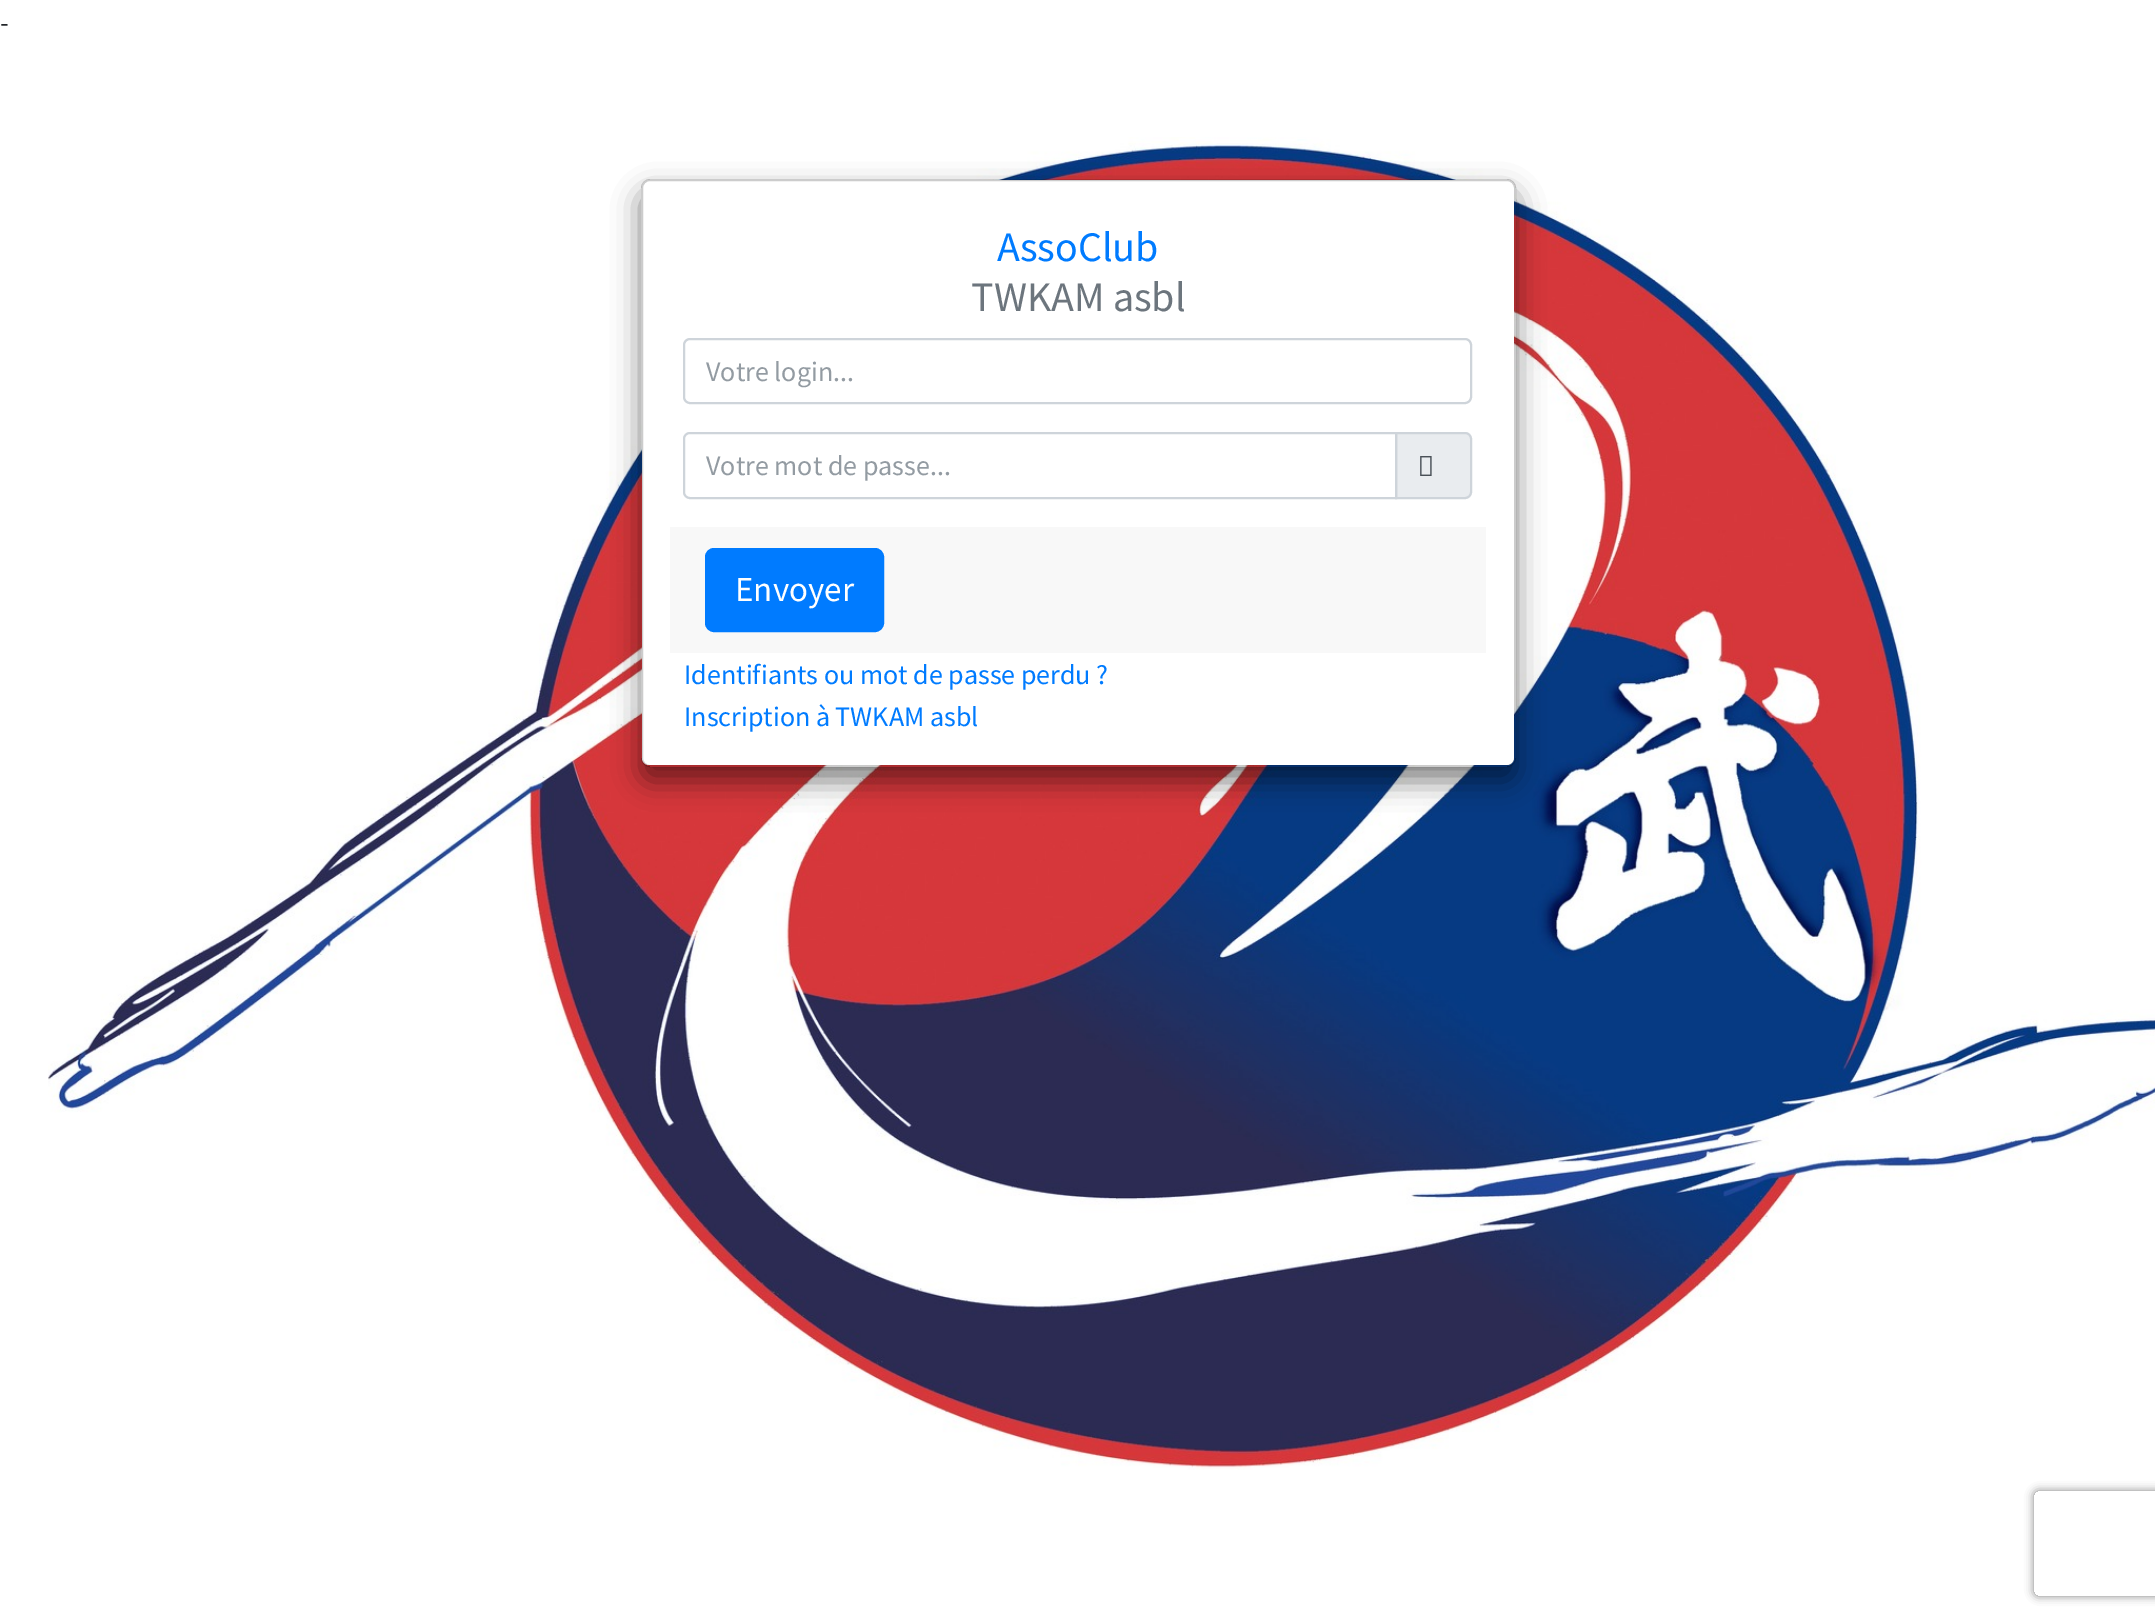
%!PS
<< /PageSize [2155 1620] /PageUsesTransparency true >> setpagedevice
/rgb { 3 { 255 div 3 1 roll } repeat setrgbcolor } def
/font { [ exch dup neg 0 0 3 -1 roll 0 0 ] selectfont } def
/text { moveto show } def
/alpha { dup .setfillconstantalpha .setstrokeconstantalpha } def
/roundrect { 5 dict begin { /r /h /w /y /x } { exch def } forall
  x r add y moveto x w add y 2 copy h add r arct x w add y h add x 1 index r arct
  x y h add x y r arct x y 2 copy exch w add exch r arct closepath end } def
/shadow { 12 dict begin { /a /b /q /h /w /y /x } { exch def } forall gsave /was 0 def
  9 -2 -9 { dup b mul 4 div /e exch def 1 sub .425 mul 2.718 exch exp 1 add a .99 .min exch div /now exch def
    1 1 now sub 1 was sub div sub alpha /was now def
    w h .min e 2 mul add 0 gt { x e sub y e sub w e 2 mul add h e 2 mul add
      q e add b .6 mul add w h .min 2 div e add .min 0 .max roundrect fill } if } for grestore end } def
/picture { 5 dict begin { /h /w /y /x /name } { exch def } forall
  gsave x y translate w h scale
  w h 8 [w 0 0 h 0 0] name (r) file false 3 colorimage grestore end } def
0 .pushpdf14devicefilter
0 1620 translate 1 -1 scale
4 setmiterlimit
255 255 255 rgb
0 0 2155 1620 rectfill
(img_01.rgb) 48 137 2107 1333 picture
gsave
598 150 moveto 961 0 rlineto 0 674 rlineto -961 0 rlineto closepath 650 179 moveto 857 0 rlineto 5 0 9 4 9 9 rcurveto 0 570 rlineto 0 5 -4 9 -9 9 rcurveto -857 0 rlineto -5 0 -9 -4 -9 -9 rcurveto 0 -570 rlineto 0 -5 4 -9 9 -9 rcurveto closepath eoclip newpath
0 0 0 rgb
641 193 875 588 9 14 0.5 shadow
grestore
642 180 872 585 7 roundrect fill
0.2 alpha
0 0 0 rgb
2 setlinewidth
642 180 873 586 8 roundrect stroke
1 alpha
206 212 218 rgb
684 339 787 64 6 roundrect stroke
233 236 239 rgb
1396 433 moveto 69 0 rlineto 3.5 0 6 2.5 6 6 rcurveto 0 53 rlineto 0 3.5 -2.5 6 -6 6 rcurveto -69 0 rlineto closepath gsave fill grestore
206 212 218 rgb
stroke
690 433 moveto 706 0 rlineto 0 65 rlineto -706 0 rlineto -3.5 0 -6 -2.5 -6 -6 rcurveto 0 -53 rlineto 0 -3.5 2.5 -6 6 -6 rcurveto closepath stroke
(img_02.rgb) 1420 456 12 20 picture
248 248 248 rgb
670 527 816 126 rectfill
0 123 255 rgb
706 549 177 82 8 roundrect gsave fill grestore
stroke
gsave
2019 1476 moveto 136 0 rlineto 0 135 rlineto -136 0 rlineto closepath 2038 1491 moveto 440 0 rlineto 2 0 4 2 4 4 rcurveto 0 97 rlineto 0 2 -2 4 -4 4 rcurveto -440 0 rlineto -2 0 -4 -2 -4 -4 rcurveto 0 -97 rlineto 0 -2 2 -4 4 -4 rcurveto closepath eoclip newpath
128 128 128 rgb
2034 1491 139 105 4 4.5 1 shadow
grestore
/SourceSansPro-Regular 28 font
33 37 41 rgb
(-) 0 32 text
/SourceSansPro-Regular 42 font
0 123 255 rgb
(AssoClub) 997 261 text
108 117 125 rgb
(TWKAM asbl) 971 311 text
/SourceSansPro-Regular 28 font
147 155 162 rgb
(Votre login...) 706 381 text
(Votre mot de passe...) 706 475 text
/SourceSansPro-Regular 35 font
255 255 255 rgb
(Envoyer) 735 601 text
/SourceSansPro-Regular 28 font
0 123 255 rgb
(Identifiants ou mot de passe perdu ?) 684 684 text
(Inscription à TWKAM asbl) 684 726 text
.poppdf14devicefilter showpage
